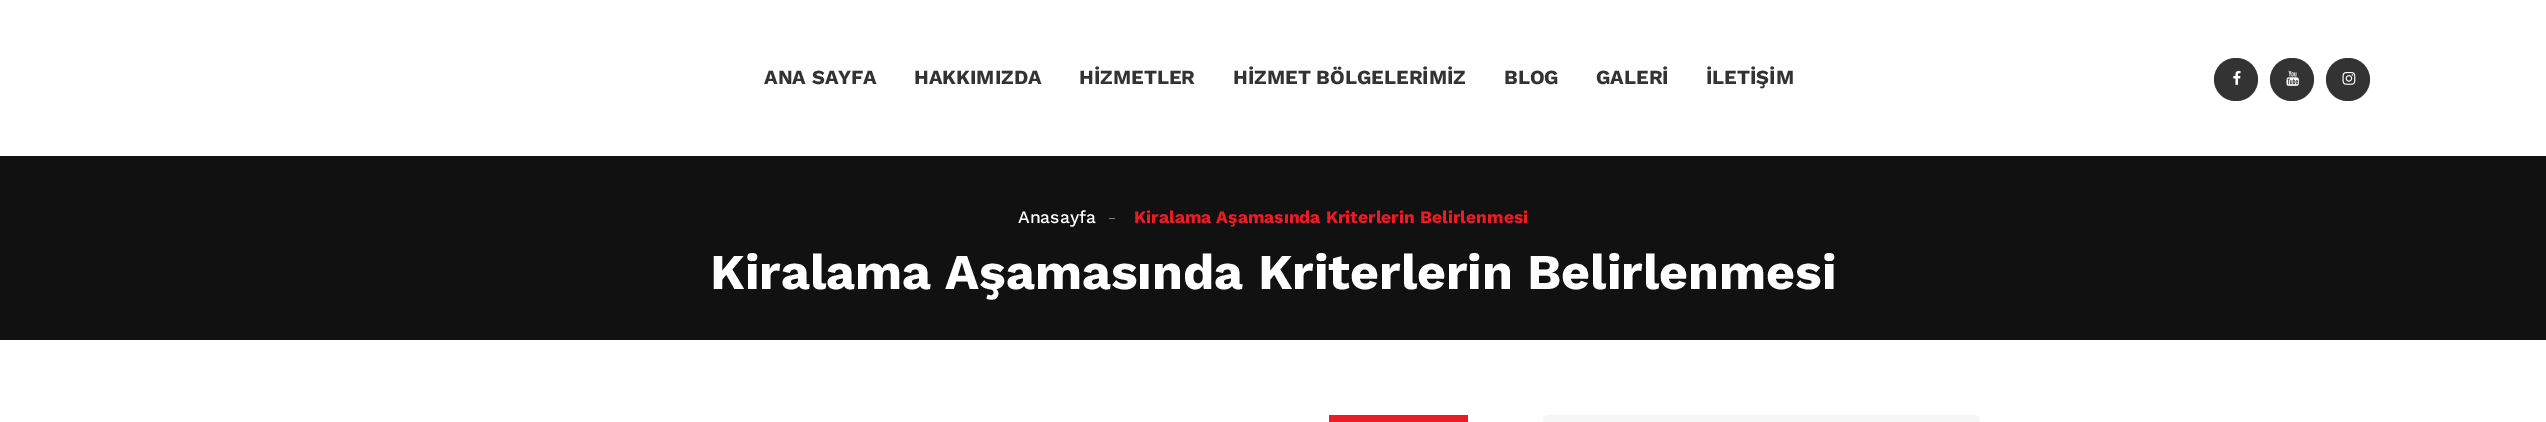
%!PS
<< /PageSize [2546 422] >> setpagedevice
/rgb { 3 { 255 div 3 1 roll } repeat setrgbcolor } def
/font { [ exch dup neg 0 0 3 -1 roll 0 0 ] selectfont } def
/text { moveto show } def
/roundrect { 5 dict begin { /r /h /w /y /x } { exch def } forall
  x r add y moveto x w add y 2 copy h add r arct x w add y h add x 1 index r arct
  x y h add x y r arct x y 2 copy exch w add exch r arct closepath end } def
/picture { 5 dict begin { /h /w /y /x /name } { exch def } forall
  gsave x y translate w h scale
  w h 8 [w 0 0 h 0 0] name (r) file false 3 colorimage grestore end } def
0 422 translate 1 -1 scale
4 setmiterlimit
255 255 255 rgb
0 0 2546 422 rectfill
51 51 51 rgb
2214 58 44 43 21.5 roundrect fill
(img_01.rgb) 2233 70 8 15 picture
2270 58 44 43 21.5 roundrect fill
(img_02.rgb) 2286 70 13 16 picture
2326 58 44 43 21.5 roundrect fill
(img_03.rgb) 2342 72 14 13 picture
17 17 17 rgb
0 156 2546 184 rectfill
132 130 124 rgb
1109 218 6 1 rectfill
237 28 36 rgb
1329 415 139 7 rectfill
246 246 246 rgb
1543 415 437 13 6 roundrect fill
/WorkSans-Bold 20 font
51 51 51 rgb
(ANA SAYFA) 764 84 text
(HAKKIMIZDA) 914 84 text
(HİZMETLER) 1079 84 text
(HİZMET BÖLGELERİMİZ) 1233 84 text
(BLOG) 1504 84 text
(GALERİ) 1596 84 text
(İLETİŞİM) 1706 84 text
/WorkSans-Medium 17.5 font
255 255 255 rgb
(Anasayfa) 1018 223 text
/WorkSans-Bold 17.5 font
237 28 36 rgb
(Kiralama Aşamasında Kriterlerin Belirlenmesi) 1134 223 text
/WorkSans-Bold 50 font
255 255 255 rgb
(Kiralama Aşamasında Kriterlerin Belirlenmesi) 710 289 text
showpage
